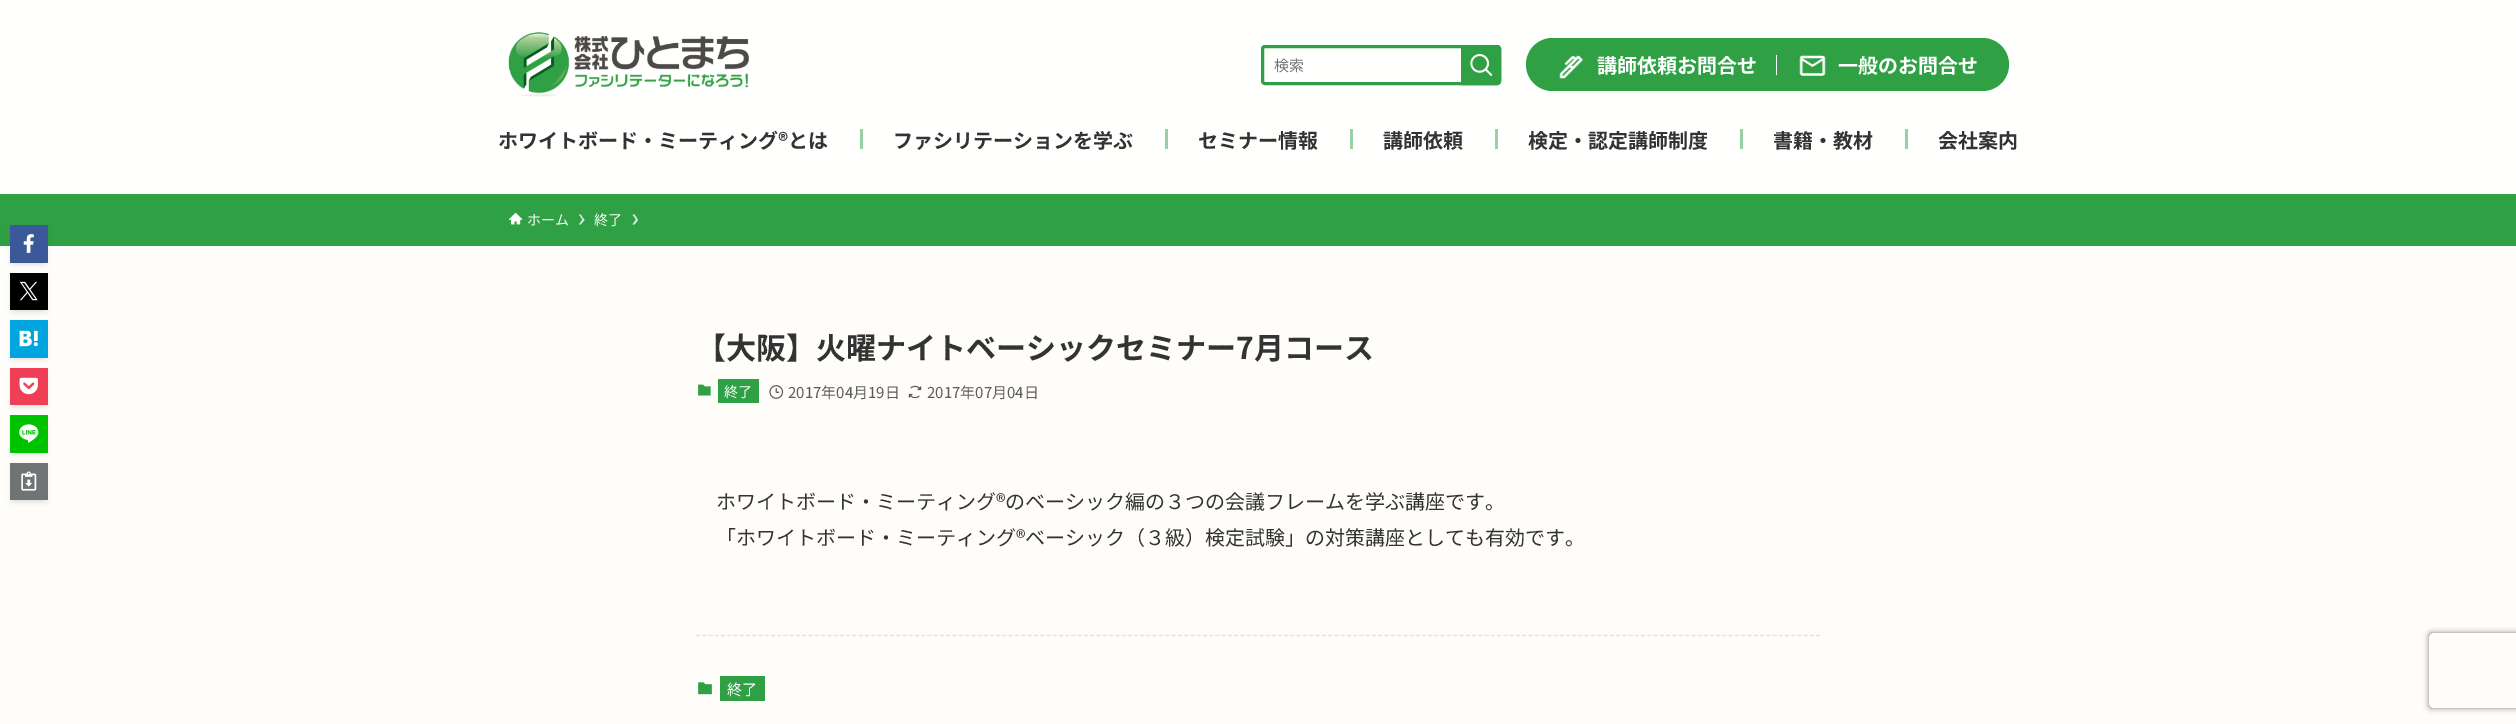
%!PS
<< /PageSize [2516 724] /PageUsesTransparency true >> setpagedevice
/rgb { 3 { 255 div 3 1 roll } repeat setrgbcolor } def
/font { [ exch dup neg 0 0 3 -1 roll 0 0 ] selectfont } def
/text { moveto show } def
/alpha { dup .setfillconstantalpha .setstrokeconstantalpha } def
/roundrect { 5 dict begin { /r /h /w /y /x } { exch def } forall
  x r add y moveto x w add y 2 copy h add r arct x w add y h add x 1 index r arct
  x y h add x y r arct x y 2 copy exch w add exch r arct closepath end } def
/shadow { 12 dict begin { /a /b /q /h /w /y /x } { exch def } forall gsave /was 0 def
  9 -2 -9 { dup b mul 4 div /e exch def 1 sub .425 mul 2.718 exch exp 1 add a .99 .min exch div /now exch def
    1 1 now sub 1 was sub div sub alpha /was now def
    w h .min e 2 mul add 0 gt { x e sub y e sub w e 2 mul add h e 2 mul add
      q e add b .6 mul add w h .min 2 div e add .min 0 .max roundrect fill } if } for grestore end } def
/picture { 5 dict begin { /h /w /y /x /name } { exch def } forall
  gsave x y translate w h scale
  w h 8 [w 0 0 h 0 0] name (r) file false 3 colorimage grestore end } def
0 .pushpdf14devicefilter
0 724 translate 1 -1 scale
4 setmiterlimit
255 253 250 rgb
0 0 2516 724 rectfill
255 255 254 rgb
0 0 2516 194 rectfill
(img_01.rgb) 508 32 241 65 picture
48 160 68 rgb
3 setlinewidth
1262.5 46.5 237 37 2.5 roundrect stroke
1461.5 45.5 moveto 35.5 0 rlineto 2 0 3.5 1.5 3.5 3.5 rcurveto 0 32 rlineto 0 2 -1.5 3.5 -3.5 3.5 rcurveto -35.5 0 rlineto closepath gsave fill grestore
1 setlinewidth
stroke
(img_02.rgb) 1470 54 23 22 picture
1526 38 483 53 26.5 roundrect fill
(img_03.rgb) 1559 55 25 24 picture
255 255 255 rgb
1776 55 1 20 rectfill
(img_04.rgb) 1799 55 27 21 picture
152 208 161 rgb
860 129 3 20 rectfill
1165 129 3 20 rectfill
1350 129 3 20 rectfill
1495 129 3 20 rectfill
1740 129 3 20 rectfill
1905 129 3 20 rectfill
48 160 68 rgb
0 194 2516 52 rectfill
(img_05.rgb) 508 212 15 13 picture
214 236 218 rgb
580.5 214.5 moveto -1.5 0 rlineto 3.5 5 rlineto -3.5 5 rlineto 1.5 0 rlineto 4 -4.5 rlineto closepath fill
634.5 214.5 moveto -2 0 rlineto 3.5 5 rlineto -3.5 5 rlineto 2 0 rlineto 3.5 -4.5 rlineto closepath fill
0 0 0 rgb
15 235 28 28 0 2.5 0.1 shadow
10 228 38 37 0 2.5 0.05 shadow
59 89 152 rgb
10 225 38 38 rectfill
(img_06.rgb) 23 234 11 19 picture
0 0 0 rgb
15 283 28 27 0 2.5 0.1 shadow
10 275 38 38 0 2.5 0.05 shadow
10 273 38 37 rectfill
(img_07.rgb) 19 281 19 20 picture
15 330 28 28 0 2.5 0.1 shadow
10 323 38 37 0 2.5 0.05 shadow
0 164 222 rgb
10 320 38 38 rectfill
(img_08.rgb) 19 330 19 17 picture
0 0 0 rgb
15 378 28 27 0 2.5 0.1 shadow
10 370 38 38 0 2.5 0.05 shadow
239 63 86 rgb
10 368 38 37 rectfill
(img_09.rgb) 19 377 19 18 picture
0 0 0 rgb
15 425 28 28 0 2.5 0.1 shadow
10 418 38 37 0 2.5 0.05 shadow
0 195 0 rgb
10 415 38 38 rectfill
(img_10.rgb) 19 424 20 19 picture
0 0 0 rgb
15 473 28 27 0 2.5 0.1 shadow
10 465 38 38 0 2.5 0.05 shadow
113 116 117 rgb
10 463 38 37 rectfill
(img_11.rgb) 21 471 16 20 picture
(img_12.rgb) 698 384 13 12 picture
48 160 68 rgb
718 379 41 24 1 roundrect fill
(img_13.rgb) 769 385 15 14 picture
(img_14.rgb) 908 385 14 14 picture
227 226 225 rgb
1.2 setlinewidth
[3.75 2.51] 0 setdash
696 635.5 moveto 1125 0 rlineto stroke
(img_15.rgb) 698 682 14 13 picture
48 160 68 rgb
720 676 45 25 1 roundrect fill
gsave
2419 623 moveto 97 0 rlineto 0 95 rlineto -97 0 rlineto closepath 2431.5 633 moveto 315 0 rlineto 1.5 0 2.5 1 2.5 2.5 rcurveto 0 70 rlineto 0 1.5 -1 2.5 -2.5 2.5 rcurveto -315 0 rlineto -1.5 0 -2.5 -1 -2.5 -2.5 rcurveto 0 -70 rlineto 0 -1.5 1 -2.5 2.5 -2.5 rcurveto closepath eoclip newpath
128 128 128 rgb
2429 633 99 75 2.5 3 1 shadow
grestore
/NotoSansJP-Regular 15 font
117 117 117 rgb
(検索) 1274 71 text
/NotoSansJP-Bold 20 font
255 255 255 rgb
(講師依頼お問合せ) 1597 73 text
(一般のお問合せ) 1838 73 text
51 51 51 rgb
(ホワイトボード・ミーティング®とは) 498 148 text
(ファシリテーションを学ぶ) 893 148 text
(セミナー情報) 1198 148 text
(講師依頼) 1383 148 text
(検定・認定講師制度) 1528 148 text
(書籍・教材) 1773 148 text
(会社案内) 1938 148 text
/NotoSansJP-Regular 14 font
255 255 255 rgb
(ホーム) 527 225 text
(終了) 594 225 text
/NotoSansJP-Bold 30 font
51 51 51 rgb
(【大阪】火曜ナイトベーシックセミナー7月コース) 696 359 text
/NotoSansJP-Regular 14 font
255 255 255 rgb
(終了) 724 397 text
/NotoSansJP-Regular 15 font
92 91 91 rgb
(2017年04月19日) 788 398 text
(2017年07月04日) 927 398 text
/NotoSansJP-Regular 20 font
51 51 51 rgb
(ホワイトボード・ミーティング®のベーシック編の３つの会議フレームを学ぶ講座です。) 716 509 text
(「ホワイトボード・ミーティング®ベーシック（３級）検定試験」の対策講座としても有効です。) 716 545 text
/NotoSansJP-Regular 15 font
255 255 255 rgb
(終了) 727 695 text
.poppdf14devicefilter showpage
